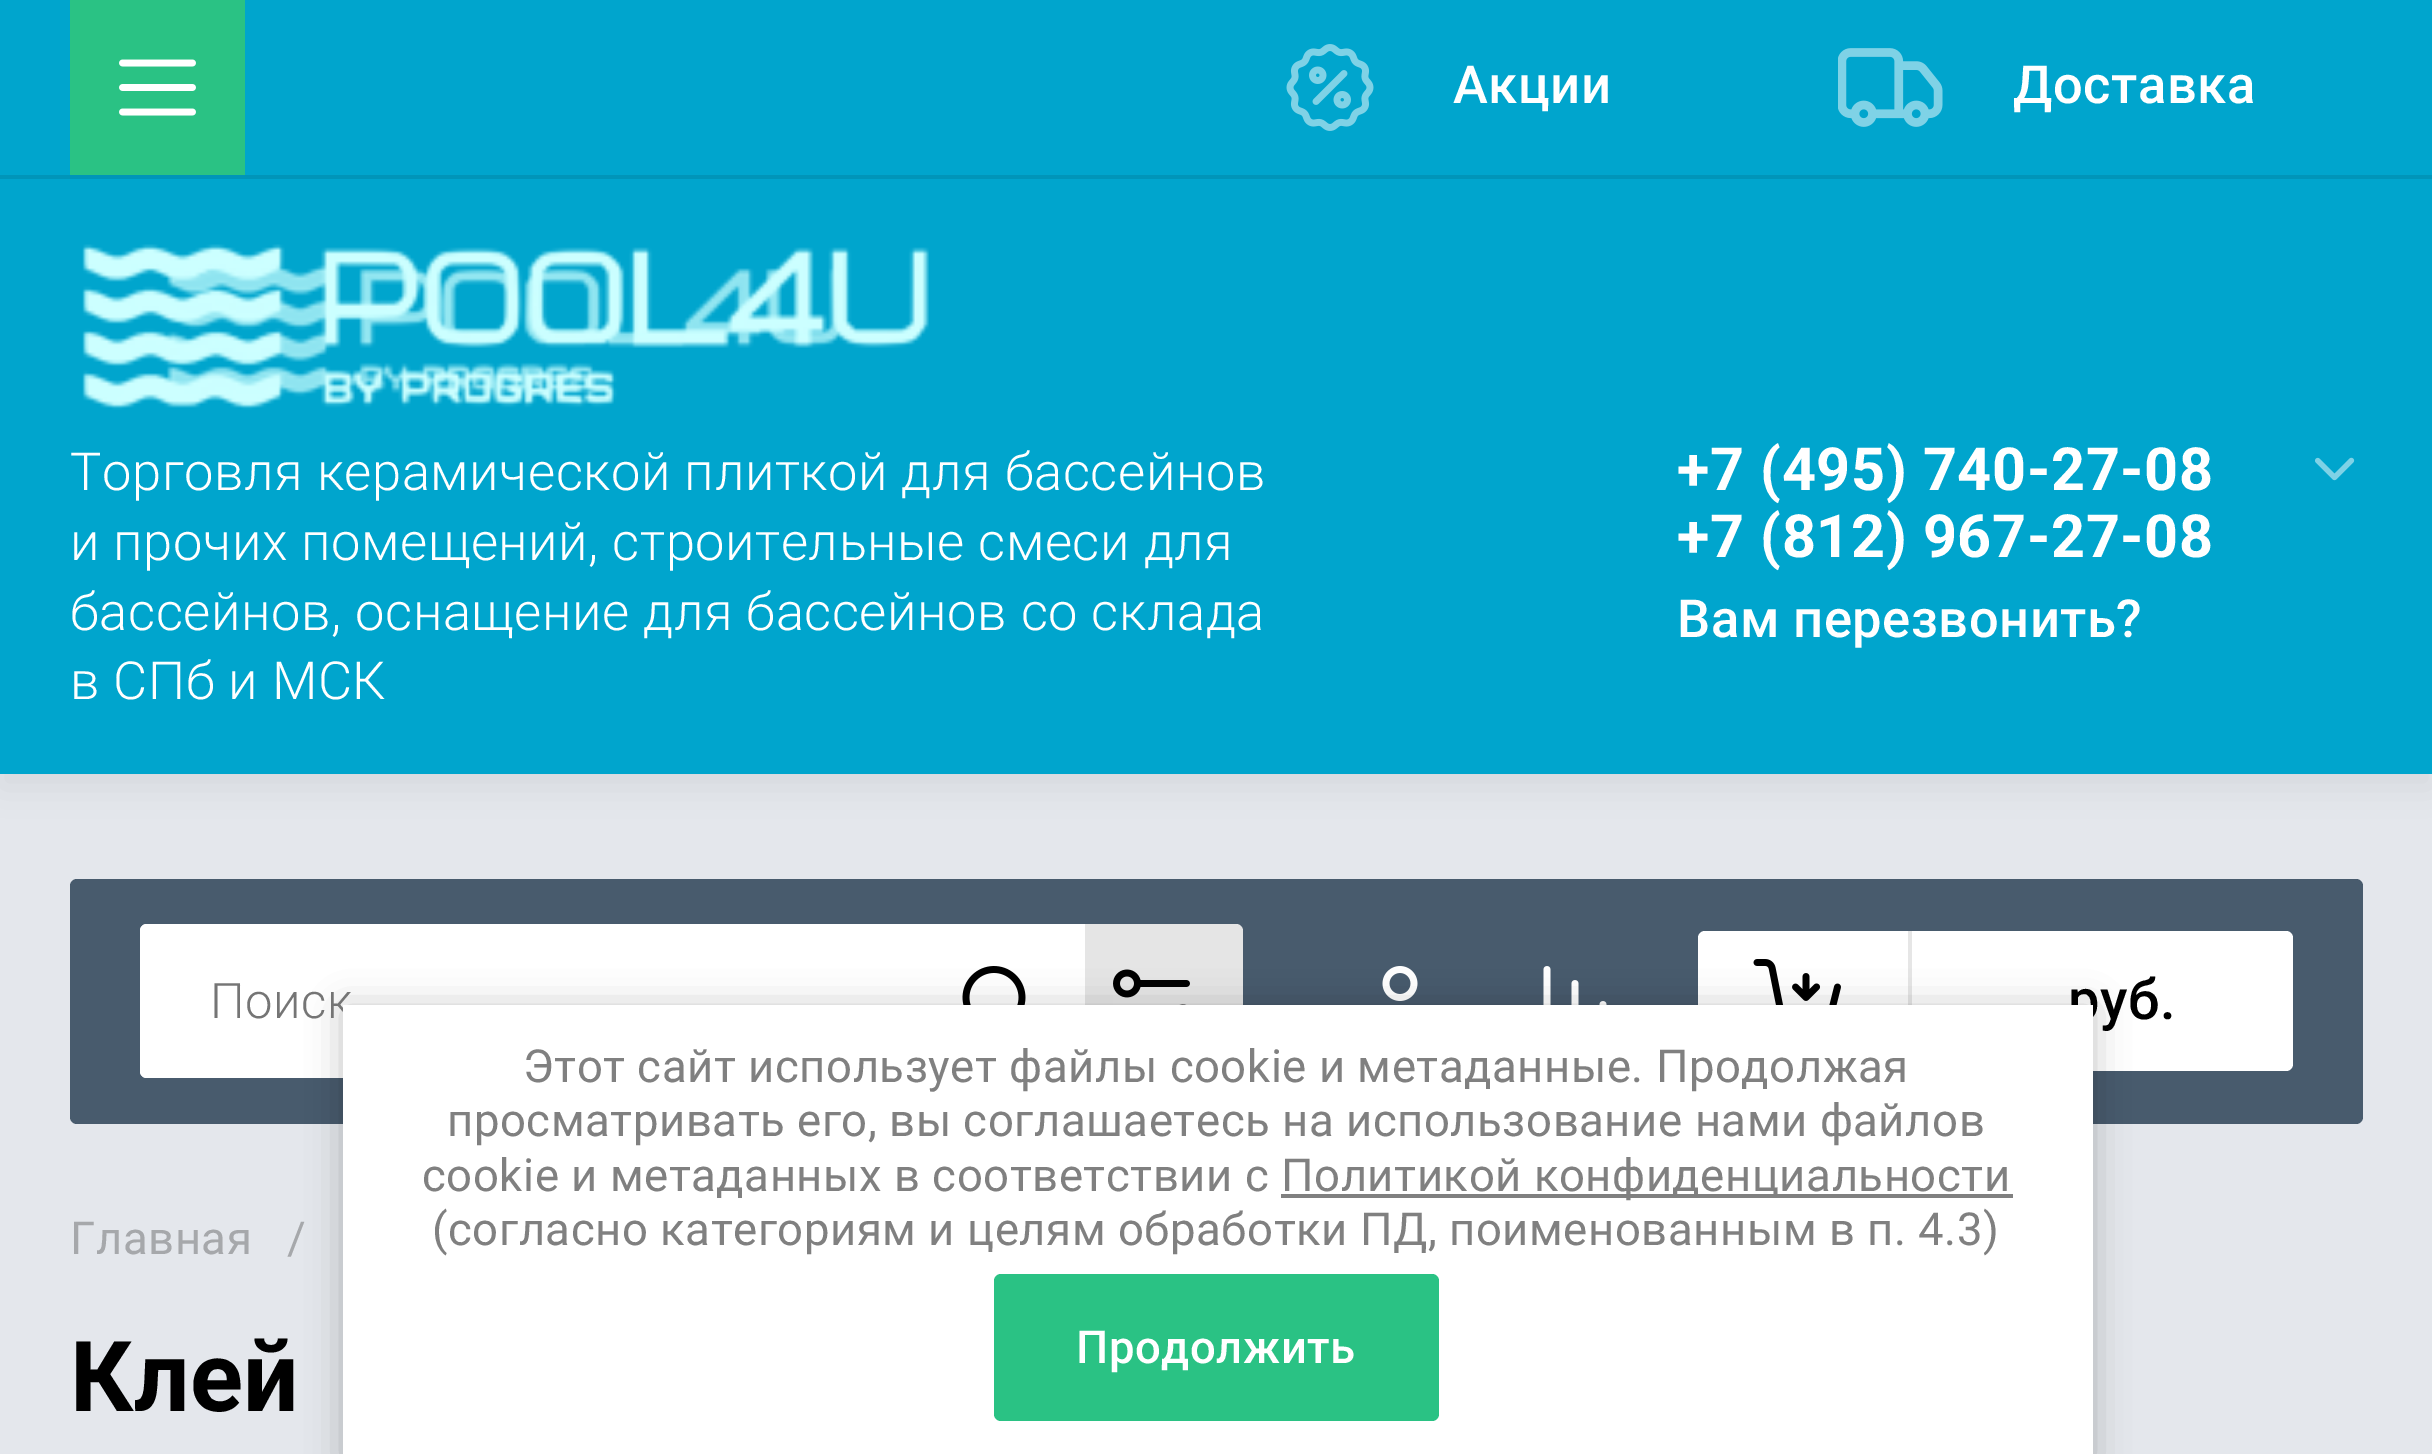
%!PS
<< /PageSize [2432 1454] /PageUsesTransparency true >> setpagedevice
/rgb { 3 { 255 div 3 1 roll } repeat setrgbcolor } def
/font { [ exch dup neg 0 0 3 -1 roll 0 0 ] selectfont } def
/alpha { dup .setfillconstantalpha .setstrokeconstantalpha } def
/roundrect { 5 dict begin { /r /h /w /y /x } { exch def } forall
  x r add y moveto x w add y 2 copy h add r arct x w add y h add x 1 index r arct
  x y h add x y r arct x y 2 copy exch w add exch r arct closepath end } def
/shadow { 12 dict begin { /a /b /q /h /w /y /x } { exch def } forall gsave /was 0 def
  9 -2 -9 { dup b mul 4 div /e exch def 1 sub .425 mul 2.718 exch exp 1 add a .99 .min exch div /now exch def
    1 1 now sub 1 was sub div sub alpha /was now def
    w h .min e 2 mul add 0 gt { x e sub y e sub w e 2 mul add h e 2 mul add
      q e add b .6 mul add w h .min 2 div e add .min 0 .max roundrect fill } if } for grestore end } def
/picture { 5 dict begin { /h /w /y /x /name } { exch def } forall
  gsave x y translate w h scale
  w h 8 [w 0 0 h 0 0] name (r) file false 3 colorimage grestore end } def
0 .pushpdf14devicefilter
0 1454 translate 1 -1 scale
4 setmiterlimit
228 231 236 rgb
0 0 2432 1454 rectfill
0 0 0 rgb
0 14 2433 774 0 17.5 0.05 shadow
0 165 205 rgb
0 0 2432 774 rectfill
42 194 132 rgb
70 0 175 175 rectfill
(img_01.rgb) 119 59 77 57 picture
(img_02.rgb) 1286 44 88 87 picture
(img_03.rgb) 1838 48 105 79 picture
0 149 185 rgb
0 175 2432 4 rectfill
(img_04.rgb) 82 244 847 166 picture
(img_05.rgb) 2315 457 40 24 picture
72 91 109 rgb
70 879 2293 245 7 roundrect fill
255 255 255 rgb
140 924 1103 154 7 roundrect fill
147 924 moveto 763 0 rlineto 0 154 rlineto -763 0 rlineto -4 0 -7 -3 -7 -7 rcurveto 0 -140 rlineto 0 -4 3 -7 7 -7 rcurveto closepath fill
(img_06.rgb) 962 966 64 39 picture
0.1 alpha
0 0 0 rgb
1085 924 moveto 151 0 rlineto 4 0 7 3 7 7 rcurveto 0 140 rlineto 0 4 -3 7 -7 7 rcurveto -151 0 rlineto closepath fill
1 alpha
(img_07.rgb) 1113 969 77 36 picture
(img_08.rgb) 1382 966 36 35 picture
(img_09.rgb) 1543 966 64 39 picture
255 255 255 rgb
1698 931 595 140 7 roundrect fill
(img_10.rgb) 1753 959 88 46 picture
230 230 230 rgb
1908 931 4 74 rectfill
0 0 0 rgb
343 1008 1750 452 0 17.5 0.23 shadow
/Roboto-Medium 52.5 font
255 255 255 rgb
1453 103 moveto 0.55 0 (Акции) ashow
2013 103 moveto 0.55 0 (Доставка) ashow
/Roboto-Light 52.5 font
70 490 moveto 0.55 0 (Торговля керамической плиткой для бассейнов) ashow
70 560 moveto 0.55 0 (и прочих помещений, строительные смеси для) ashow
70 630 moveto 0.55 0 (бассейнов, оснащение для бассейнов со склада) ashow
70 699 moveto 0.55 0 (в СПб и МСК) ashow
/Roboto-Bold 59.5 font
1677 490 moveto 0.6 0 (+7 \(495\) 740-27-08) ashow
1677 557 moveto 0.6 0 (+7 \(812\) 967-27-08) ashow
/Roboto-Medium 52.5 font
1677 637 moveto 0.55 0 (Вам перезвонить?) ashow
/Roboto-Light 49 font
117 117 117 rgb
210 1018 moveto 0.5 0 (Поиск) ashow
/Roboto-Medium 56 font
0 0 0 rgb
2068 1019 moveto 0.55 0 (руб.) ashow
/Roboto-Regular 45.5 font
166 168 171 rgb
70 1254 moveto 0.55 0 (Главная) ashow
287 1254 moveto 0.55 0 (/) ashow
/Roboto-Bold 98 font
0 0 0 rgb
70 1411 moveto 0.55 0 (Клей) ashow
255 255 255 rgb
343 1005 1750 449 rectfill
/Roboto-Regular 45.5 font
128 128 128 rgb
523 1082 moveto 0.55 0 (Этот сайт использует файлы cookie и метаданные. Продолжая) ashow
447 1136 moveto 0.55 0 (просматривать его, вы соглашаетесь на использование нами файлов) ashow
422 1191 moveto 0.55 0 (cookie и метаданных в соответствии с) ashow
1281 1194 732 4 rectfill
1281 1191 moveto 0.55 0 (Политикой конфиденциальности) ashow
432 1245 moveto 0.55 0 (\(согласно категориям и целям обработки ПД, поименованным в п. 4.3\)) ashow
42 194 132 rgb
994 1274 445 147 7 roundrect fill
/Roboto-Medium 45.5 font
255 255 255 rgb
1076 1363 moveto 0.55 0 (Продолжить) ashow
.poppdf14devicefilter showpage
